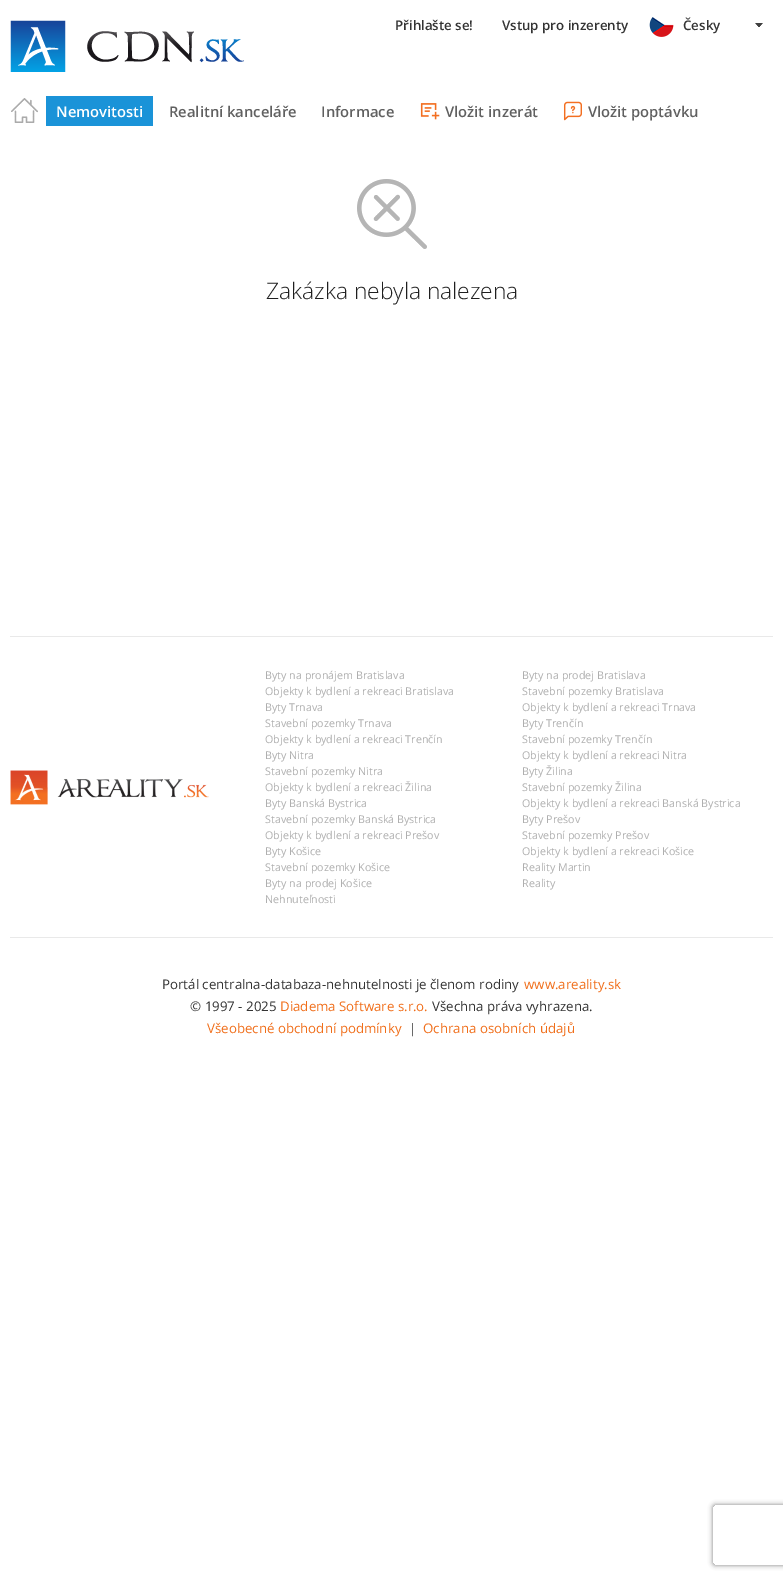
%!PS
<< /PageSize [783 1579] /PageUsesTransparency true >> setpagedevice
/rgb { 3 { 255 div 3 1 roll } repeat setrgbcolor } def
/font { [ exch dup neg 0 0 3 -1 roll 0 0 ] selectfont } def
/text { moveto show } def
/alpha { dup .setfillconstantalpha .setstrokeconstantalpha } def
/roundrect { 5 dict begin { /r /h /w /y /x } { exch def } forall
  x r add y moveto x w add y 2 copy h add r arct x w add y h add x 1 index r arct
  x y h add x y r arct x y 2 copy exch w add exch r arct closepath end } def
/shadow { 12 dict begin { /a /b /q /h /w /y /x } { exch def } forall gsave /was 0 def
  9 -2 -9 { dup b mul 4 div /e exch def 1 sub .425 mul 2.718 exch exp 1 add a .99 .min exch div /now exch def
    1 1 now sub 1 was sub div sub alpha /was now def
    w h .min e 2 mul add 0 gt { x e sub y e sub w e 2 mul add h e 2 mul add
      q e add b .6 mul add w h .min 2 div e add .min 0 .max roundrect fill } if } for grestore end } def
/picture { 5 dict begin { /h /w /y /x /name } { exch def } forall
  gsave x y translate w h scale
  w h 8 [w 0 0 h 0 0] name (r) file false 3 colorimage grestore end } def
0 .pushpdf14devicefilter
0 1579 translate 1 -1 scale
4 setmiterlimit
255 255 255 rgb
0 0 783 1579 rectfill
(img_01.rgb) 649 17 25 20 picture
(img_02.rgb) 755 23 8 4 picture
(img_03.rgb) 11 98 27 25 picture
26 147 216 rgb
46 96 107 30 rectfill
(img_04.rgb) 420 103 20 17 picture
(img_05.rgb) 563 101 19 20 picture
(img_06.rgb) 10 20 234 52 picture
(img_07.rgb) 357 179 70 70 picture
233 233 233 rgb
10 636 763 1 rectfill
10 937 763 1 rectfill
(img_08.rgb) 10 770 199 35 picture
gsave
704 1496 moveto 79 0 rlineto 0 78 rlineto -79 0 rlineto closepath 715 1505 moveto 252 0 rlineto 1 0 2 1 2 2 rcurveto 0 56 rlineto 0 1 -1 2 -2 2 rcurveto -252 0 rlineto -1 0 -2 -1 -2 -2 rcurveto 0 -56 rlineto 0 -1 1 -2 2 -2 rcurveto closepath eoclip newpath
128 128 128 rgb
713 1505 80 60 2 2.5 1 shadow
grestore
/OpenSans-SemiBold 13.3 font
51 51 51 rgb
(Přihlašte se!) 395 30 text
(Vstup pro inzerenty) 502 30 text
(Česky) 683 30 text
/OpenSans-SemiBold 14.75 font
255 255 255 rgb
(Nemovitosti) 56 117 text
96 96 96 rgb
(Realitní kanceláře) 169 117 text
(Informace) 321 117 text
(Vložit inzerát) 445 117 text
(Vložit poptávku) 588 117 text
/OpenSans-Light 22.75 font
31 31 31 rgb
(Zakázka nebyla nalezena) 266 299 text
/OpenSans-Regular 10.7 font
175 175 175 rgb
(Byty na pronájem Bratislava) 265 679 text
(Byty na prodej Bratislava) 522 679 text
(Objekty k bydlení a rekreaci Bratislava) 265 695 text
(Stavební pozemky Bratislava) 522 695 text
(Byty Trnava) 265 711 text
(Objekty k bydlení a rekreaci Trnava) 522 711 text
(Stavební pozemky Trnava) 265 727 text
(Byty Trenčín) 522 727 text
(Objekty k bydlení a rekreaci Trenčín) 265 743 text
(Stavební pozemky Trenčín) 522 743 text
(Byty Nitra) 265 759 text
(Objekty k bydlení a rekreaci Nitra) 522 759 text
(Stavební pozemky Nitra) 265 775 text
(Byty Žilina) 522 775 text
(Objekty k bydlení a rekreaci Žilina) 265 791 text
(Stavební pozemky Žilina) 522 791 text
(Byty Banská Bystrica) 265 807 text
(Objekty k bydlení a rekreaci Banská Bystrica) 522 807 text
(Stavební pozemky Banská Bystrica) 265 823 text
(Byty Prešov) 522 823 text
(Objekty k bydlení a rekreaci Prešov) 265 839 text
(Stavební pozemky Prešov) 522 839 text
(Byty Košice) 265 855 text
(Objekty k bydlení a rekreaci Košice) 522 855 text
(Stavební pozemky Košice) 265 871 text
(Reality Martin) 522 871 text
(Byty na prodej Košice) 265 887 text
(Reality) 522 887 text
(Nehnuteľnosti) 265 903 text
/OpenSans-Regular 13.3 font
51 51 51 rgb
(Portál centralna-databaza-nehnutelnosti je členom rodiny) 162 989 text
240 110 26 rgb
(www.areality.sk) 524 989 text
51 51 51 rgb
(© 1997 - 2025) 190 1011 text
240 110 26 rgb
(Diadema Software s.r.o.) 280 1011 text
51 51 51 rgb
(Všechna práva vyhrazena.) 432 1011 text
240 110 26 rgb
(Všeobecné obchodní podmínky) 207 1033 text
51 51 51 rgb
(|) 409 1033 text
240 110 26 rgb
(Ochrana osobních údajů) 423 1033 text
.poppdf14devicefilter showpage
